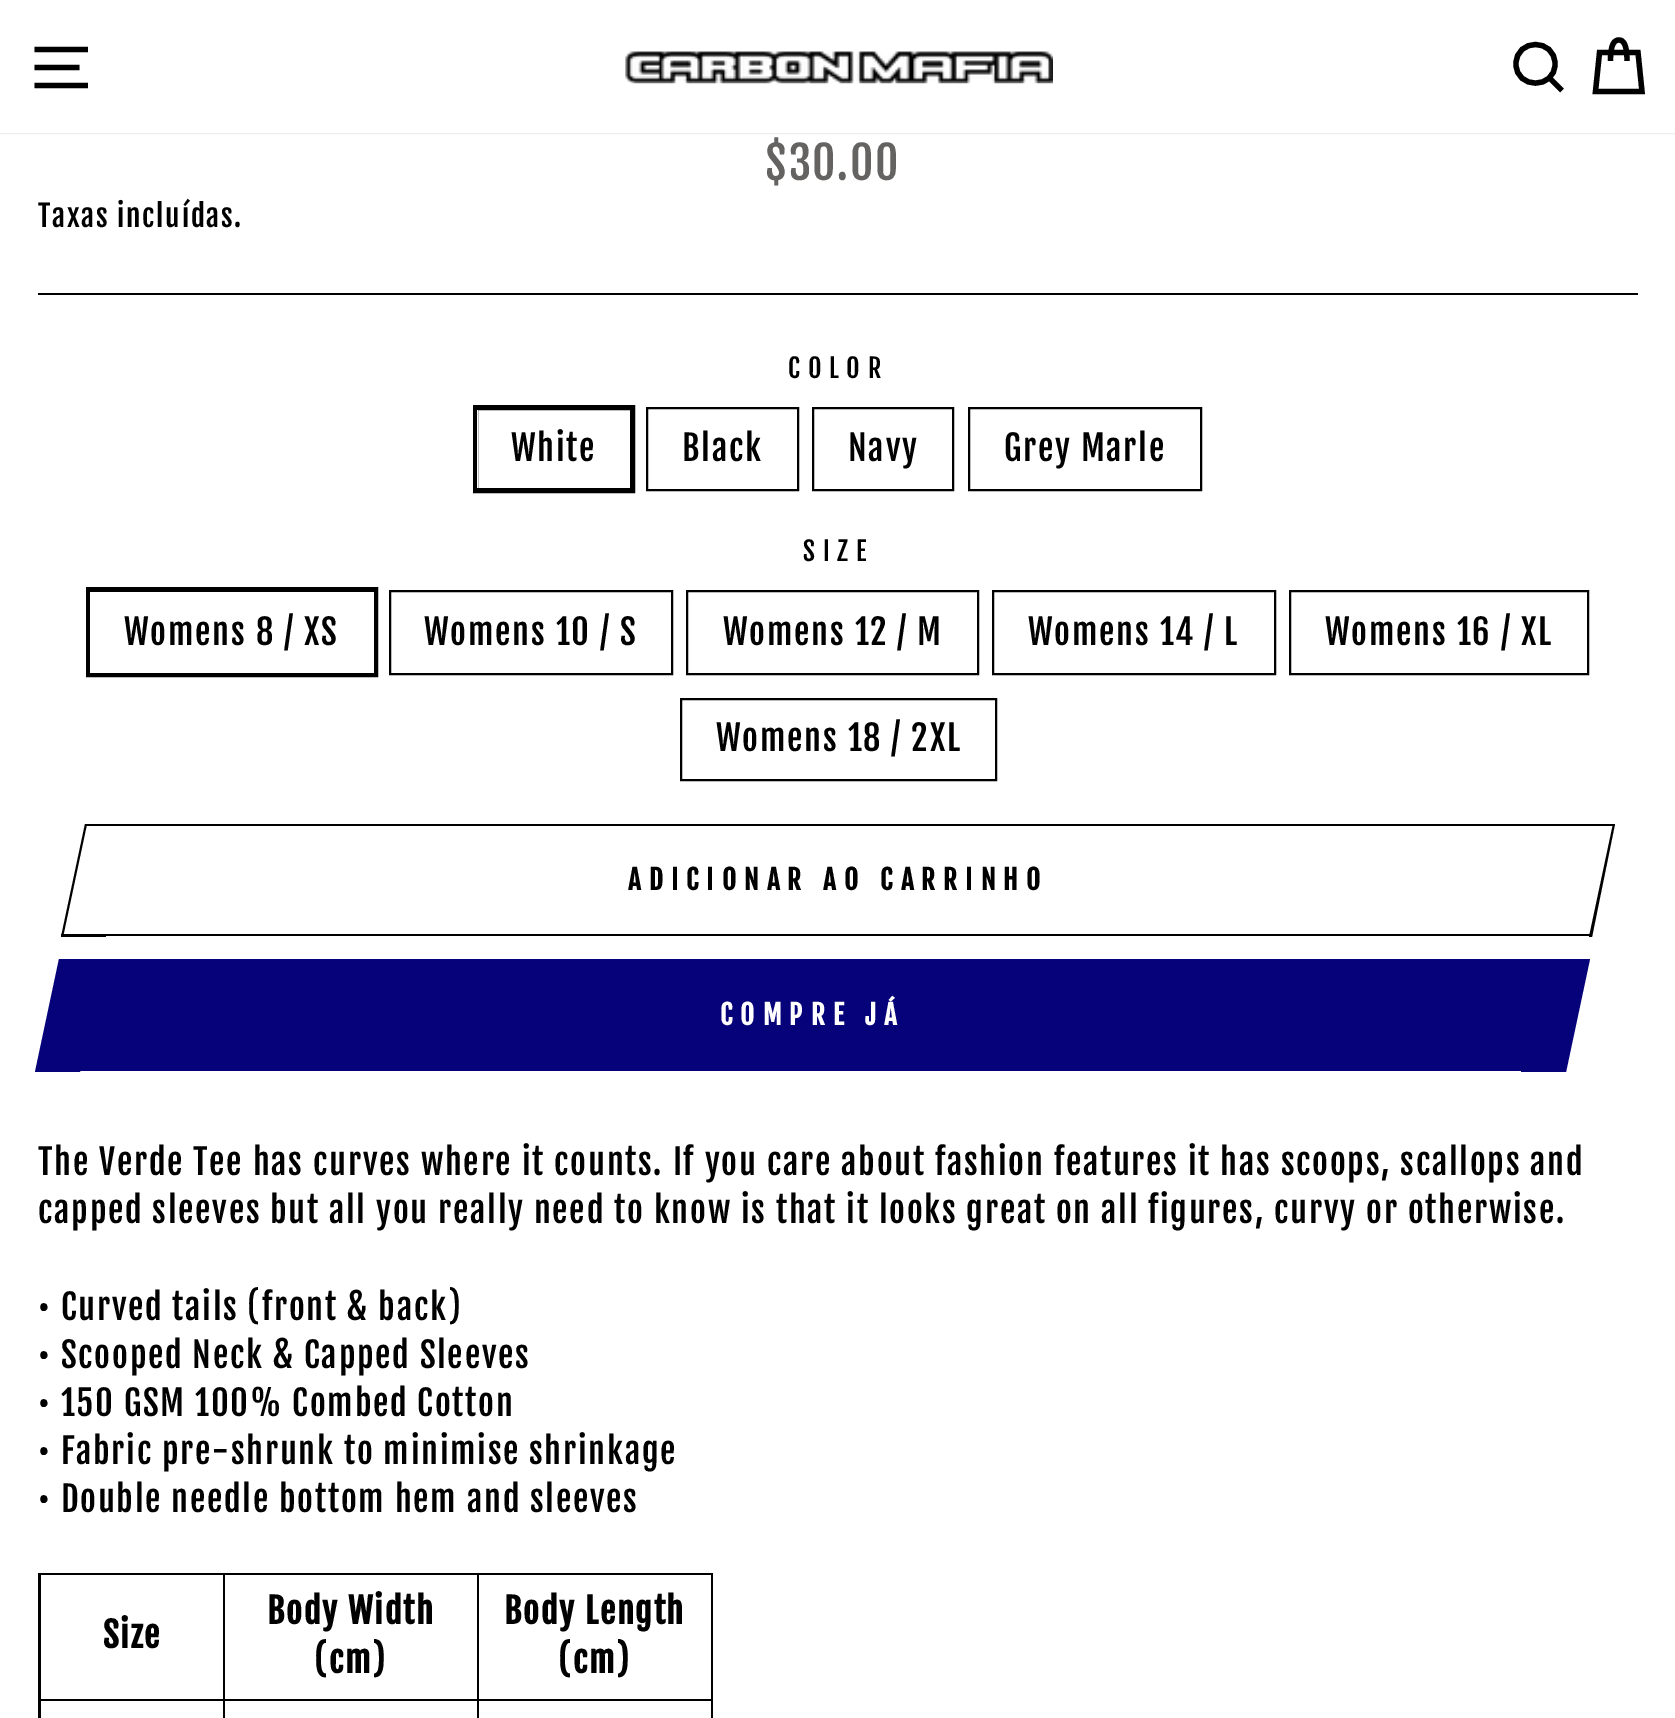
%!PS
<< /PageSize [1675 1718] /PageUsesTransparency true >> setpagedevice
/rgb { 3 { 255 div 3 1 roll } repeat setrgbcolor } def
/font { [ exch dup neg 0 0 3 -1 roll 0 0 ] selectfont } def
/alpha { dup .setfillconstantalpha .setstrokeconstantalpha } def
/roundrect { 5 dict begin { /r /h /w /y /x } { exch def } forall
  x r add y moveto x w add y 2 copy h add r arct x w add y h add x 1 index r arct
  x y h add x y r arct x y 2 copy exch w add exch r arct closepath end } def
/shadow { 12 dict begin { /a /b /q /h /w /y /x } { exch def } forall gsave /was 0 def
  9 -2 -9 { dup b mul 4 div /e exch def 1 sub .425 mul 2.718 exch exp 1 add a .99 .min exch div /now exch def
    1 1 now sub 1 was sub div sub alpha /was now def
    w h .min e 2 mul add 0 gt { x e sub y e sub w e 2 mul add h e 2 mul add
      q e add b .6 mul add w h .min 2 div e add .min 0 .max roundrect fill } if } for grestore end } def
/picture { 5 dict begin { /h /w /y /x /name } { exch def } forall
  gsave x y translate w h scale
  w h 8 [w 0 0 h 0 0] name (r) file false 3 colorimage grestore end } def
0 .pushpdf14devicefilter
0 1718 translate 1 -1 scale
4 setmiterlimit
255 255 255 rgb
0 0 1675 1718 rectfill
0 0 0 rgb
0 0 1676 133 0 1 0.2 shadow
255 255 255 rgb
0 0 1675 133 rectfill
0 0 0 rgb
5.3 setlinewidth
34.5 49.5 moveto 53.5 0 rlineto 34.5 67.5 moveto 45 0 rlineto 34.5 85.5 moveto 53.5 0 rlineto stroke
(img_01.rgb) 625 51 428 33 picture
1555 64 moveto 0 25.5 -39 25.5 -39 0 rcurveto 0 -26 39 -26 39 0 rcurveto closepath 1562 90.5 moveto -12.5 -12.5 rlineto stroke
1610.5 61 moveto 0 -16.5 3.5 -21 8.5 -21 rcurveto 4.5 0 8 4.5 8 21 rcurveto 1599.5 52.5 moveto 38.5 0 rlineto 4 39 rlineto -46.5 0 rlineto closepath stroke
38 293 1600 2 rectfill
5 setlinewidth
475.5 407.5 157 83 rectstroke
255 255 255 rgb
477 410 1 78 rectfill
0 0 0 rgb
2 setlinewidth
647 408 151 82 rectstroke
813 408 140 82 rectstroke
969 408 232 82 rectstroke
5 setlinewidth
88.5 589.5 287 85 rectstroke
255 255 255 rgb
90 592 284 81 rectfill
0 0 0 rgb
2 setlinewidth
390 591 282 83 rectstroke
687 591 291 83 rectstroke
993 591 282 83 rectstroke
1290 591 298 83 rectstroke
681 699 315 81 rectstroke
86 824 1529 2 rectfill
106 934 1485 2 rectfill
61 934 45 3 rectfill
85 824 moveto 2 0 rlineto -24 113 rlineto -2 0 rlineto closepath fill
1613 824 moveto 2 0 rlineto -23 113 rlineto -3 0 rlineto closepath fill
6 2 121 rgb
80 959 1465 112 rectfill
59 959 moveto 45 0 rlineto -24 113 rlineto -45 0 rlineto closepath fill
1545 959 moveto 45 0 rlineto -24 113 rlineto -45 0 rlineto closepath fill
0 0 0 rgb
38 1573 675 145 rectfill
255 255 255 rgb
41 1575 182 124 rectfill
225 1575 252 124 rectfill
479 1575 232 124 rectfill
41 1701 182 17 rectfill
225 1701 252 17 rectfill
479 1701 232 17 rectfill
/FjallaOne-Regular 45 font
100 99 97 rgb
765 180 moveto 1.72 0 ($30.00) ashow
/FjallaOne-Regular 29.25 font
0 0 0 rgb
38 227 moveto 1.72 0 (Taxas incluídas.) ashow
/FjallaOne-Regular 26 font
788 378 moveto 7.75 0 (COLOR) ashow
/FjallaOne-Regular 34.45 font
511 461 moveto 1.72 0 (White) ashow
682 461 moveto 1.72 0 (Black) ashow
848 461 moveto 1.72 0 (Navy) ashow
1004 461 moveto 1.72 0 (Grey Marle) ashow
/FjallaOne-Regular 26 font
803 561 moveto 7.75 0 (SIZE) ashow
/FjallaOne-Regular 34.45 font
124 645 moveto 1.72 0 (Womens 8 / XS) ashow
424 645 moveto 1.72 0 (Womens 10 / S) ashow
723 645 moveto 1.72 0 (Womens 12 / M) ashow
1028 645 moveto 1.72 0 (Womens 14 / L) ashow
1325 645 moveto 1.72 0 (Womens 16 / XL) ashow
716 751 moveto 1.72 0 (Womens 18 / 2XL) ashow
/FjallaOne-Bold 27 font
628 890 moveto 8.1 0 (ADICIONAR AO CARRINHO) ashow
255 255 255 rgb
720 1025 moveto 8.1 0 (COMPRE JÁ) ashow
/FjallaOne-Regular 34.45 font
0 0 0 rgb
38 1175 moveto 1.72 0 (The Verde Tee has curves where it counts. If you care about fashion features it has scoops, scallops and) ashow
38 1223 moveto 1.72 0 (capped sleeves but all you really need to know is that it looks great on all figures, curvy or otherwise.) ashow
38 1320 moveto 1.72 0 (• Curved tails \(front & back\)) ashow
38 1368 moveto 1.72 0 (• Scooped Neck & Capped Sleeves) ashow
38 1416 moveto 1.72 0 (• 150 GSM 100% Combed Cotton) ashow
38 1464 moveto 1.72 0 (• Fabric pre-shrunk to minimise shrinkage) ashow
38 1512 moveto 1.72 0 (• Double needle bottom hem and sleeves) ashow
/FjallaOne-Bold 34.45 font
103 1648 moveto 1.72 0 (Size) ashow
267 1624 moveto 1.72 0 (Body Width) ashow
314 1673 moveto 1.72 0 (\(cm\)) ashow
504 1624 moveto 1.72 0 (Body Length) ashow
558 1673 moveto 1.72 0 (\(cm\)) ashow
.poppdf14devicefilter showpage
